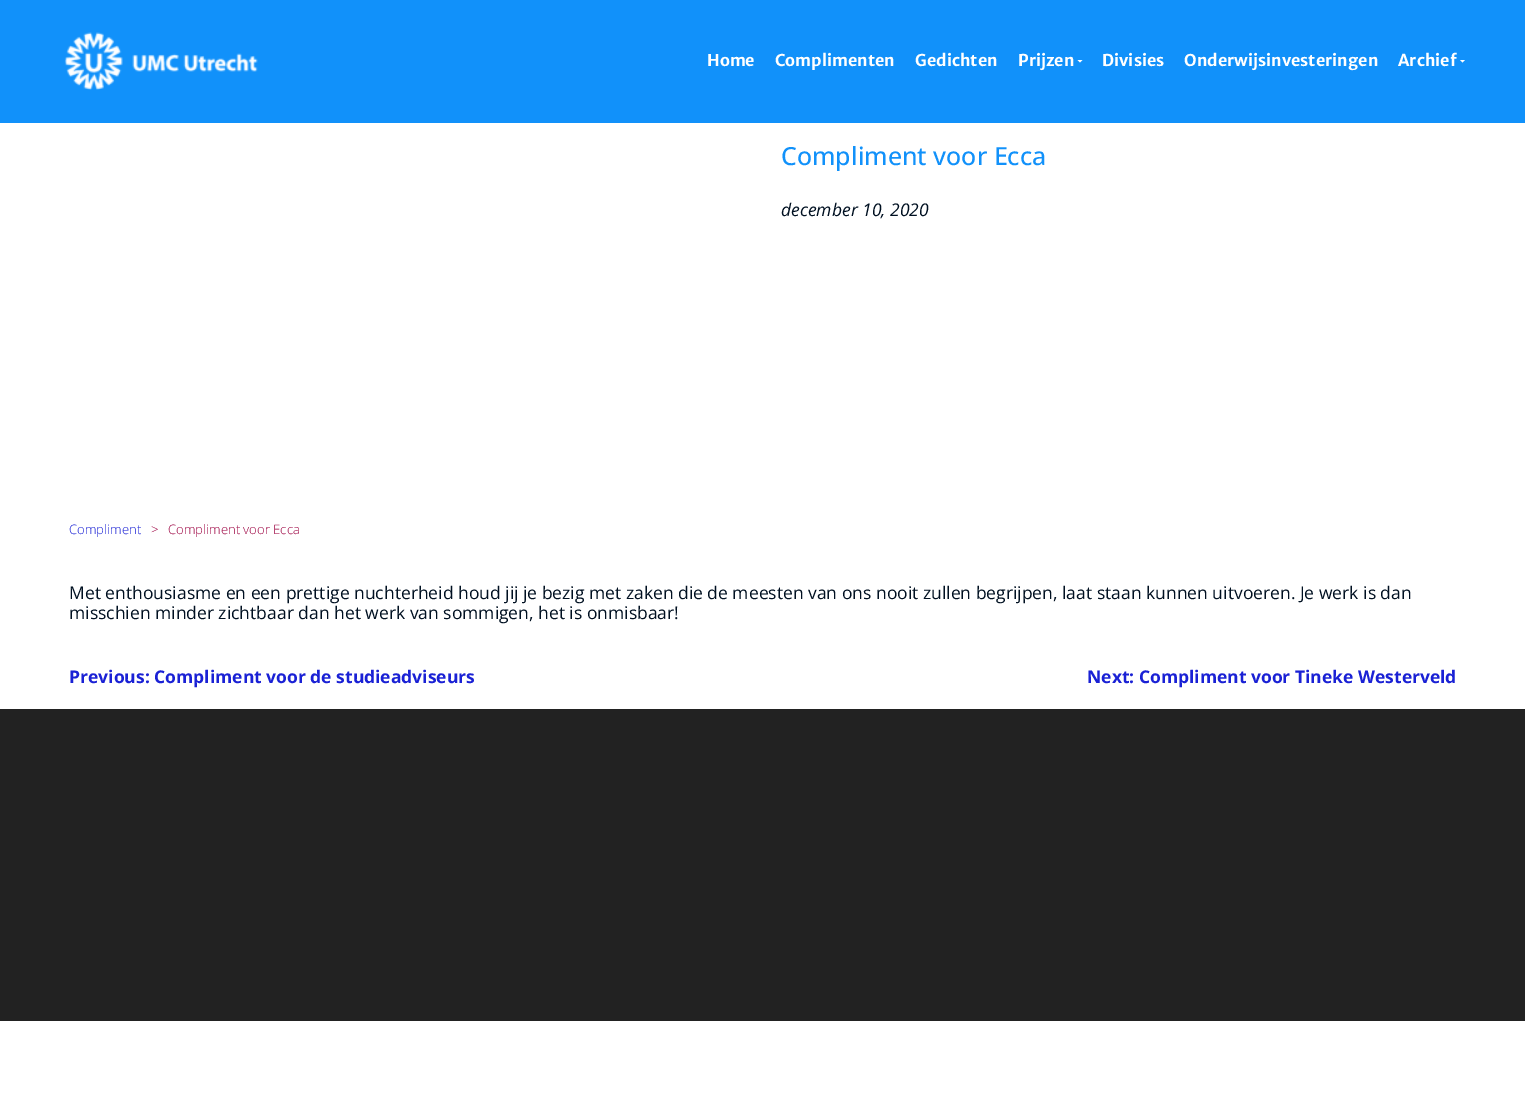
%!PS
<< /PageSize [1525 1104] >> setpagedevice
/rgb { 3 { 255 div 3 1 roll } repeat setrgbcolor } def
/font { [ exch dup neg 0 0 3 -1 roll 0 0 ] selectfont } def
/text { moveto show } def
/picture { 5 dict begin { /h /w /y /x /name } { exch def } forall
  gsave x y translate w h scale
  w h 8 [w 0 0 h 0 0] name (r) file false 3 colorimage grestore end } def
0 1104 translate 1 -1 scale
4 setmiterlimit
255 255 255 rgb
0 0 1525 1104 rectfill
17 145 250 rgb
0 0 1525 123 rectfill
(img_01.rgb) 64 32 194 58 picture
255 255 255 rgb
1077.5 60 moveto 5 0 rlineto -2.5 2.5 rlineto closepath fill
1460 60 moveto 5 0 rlineto -2.5 2.5 rlineto closepath fill
34 34 34 rgb
0 709 1525 312 rectfill
/MerriweatherSans-Bold 16.25 font
255 255 255 rgb
(Home) 707 66 text
(Complimenten) 775 66 text
(Gedichten) 915 66 text
(Prijzen) 1018 66 text
(Divisies) 1102 66 text
(Onderwijsinvesteringen) 1184 66 text
(Archief) 1398 66 text
/OpenSans-Medium 25 font
17 145 250 rgb
(Compliment voor Ecca) 781 165 text
/OpenSans-Italic 17.5 font
0 16 33 rgb
(december 10, 2020) 781 216 text
/OpenSans-Light 13.1 font
26 33 213 rgb
(Compliment) 69 534 text
158 5 68 rgb
(>) 151 534 text
(Compliment voor Ecca) 168 534 text
/OpenSans-Regular 17.5 font
0 16 33 rgb
(Met enthousiasme en een prettige nuchterheid houd jij je bezig met zaken die de meesten van ons nooit zullen begrijpen, laat staan kunnen uitvoeren. Je werk is dan) 69 599 text
(misschien minder zichtbaar dan het werk van sommigen, het is onmisbaar!) 69 619 text
/OpenSans-Bold 17.5 font
26 33 213 rgb
(Previous: Compliment voor de studieadviseurs) 69 683 text
(Next: Compliment voor Tineke Westerveld) 1087 683 text
showpage
